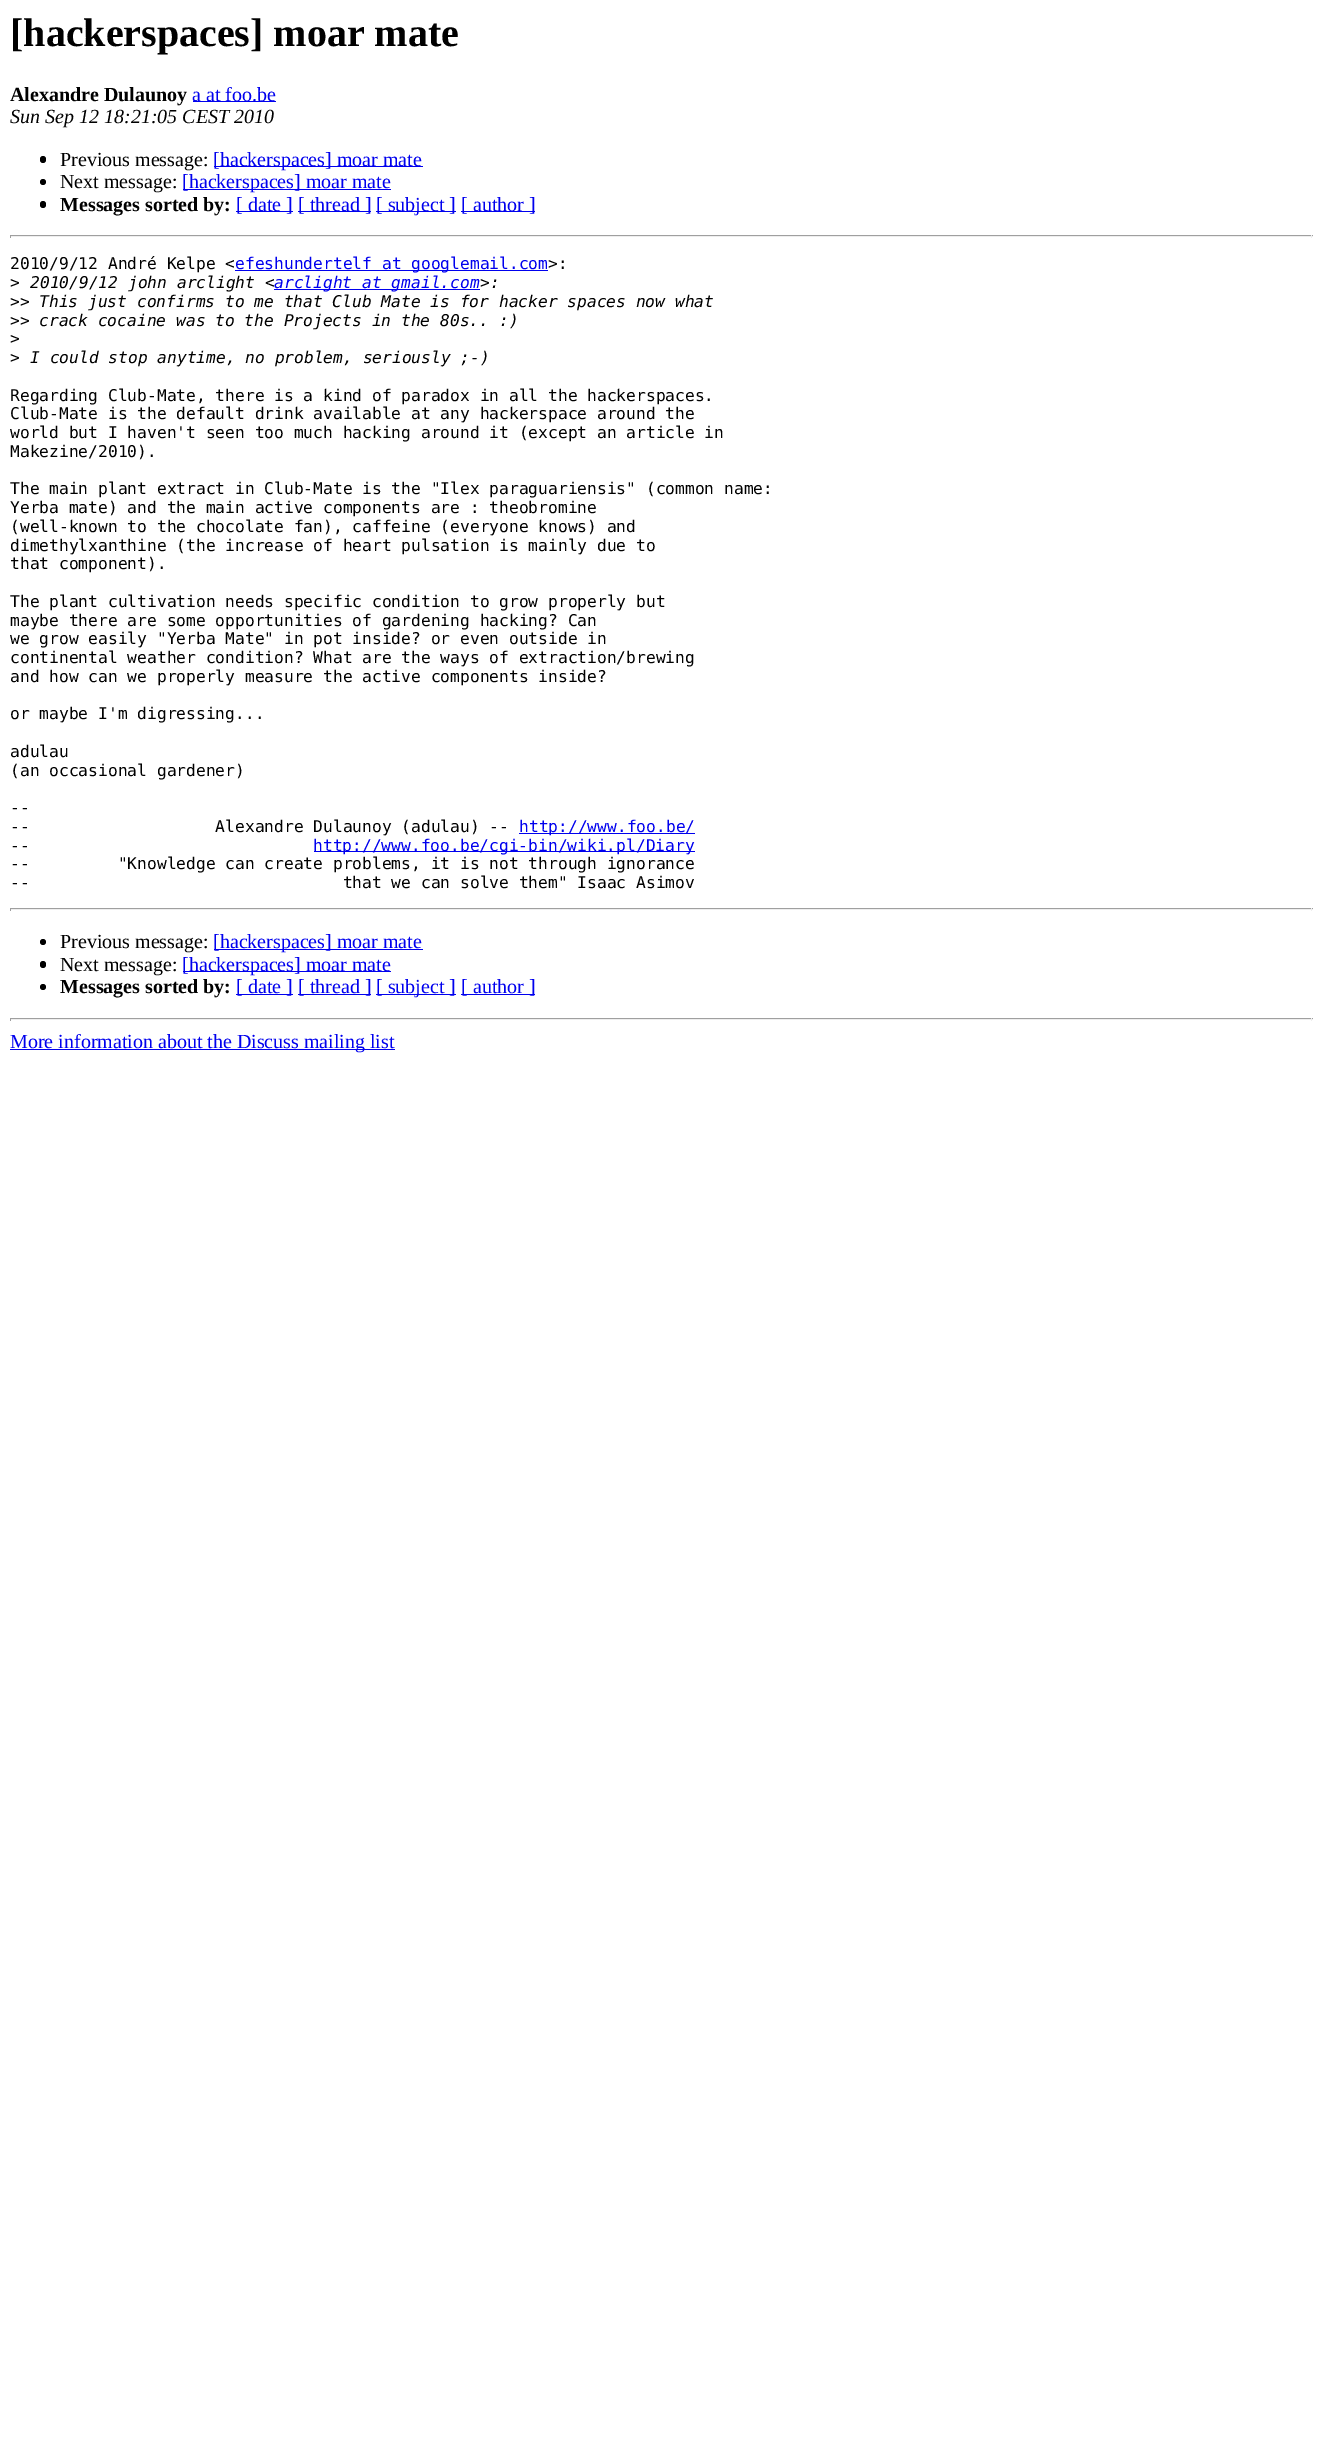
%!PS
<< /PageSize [1322 2444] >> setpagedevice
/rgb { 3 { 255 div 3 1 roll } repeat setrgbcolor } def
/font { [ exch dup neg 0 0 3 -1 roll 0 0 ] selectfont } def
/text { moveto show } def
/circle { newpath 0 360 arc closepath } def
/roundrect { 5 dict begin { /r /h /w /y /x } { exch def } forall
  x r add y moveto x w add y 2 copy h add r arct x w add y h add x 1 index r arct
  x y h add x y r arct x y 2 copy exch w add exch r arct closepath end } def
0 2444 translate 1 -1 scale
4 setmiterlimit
255 255 255 rgb
0 0 1322 2444 rectfill
0 0 238 rgb
193 101 83 1 rectfill
0 0 0 rgb
40 156 6 7 3 roundrect fill
0 0 238 rgb
214 166 209 1 rectfill
0 0 0 rgb
43 182 3 circle fill
0 0 238 rgb
183 189 208 1 rectfill
0 0 0 rgb
40 201 6 7 3 roundrect fill
0 0 238 rgb
236 211 57 1 rectfill
298 211 73 1 rectfill
376 211 80 1 rectfill
461 211 74 1 rectfill
159 159 159 rgb
10 235 1303 1 rectfill
238 238 238 rgb
1311 235 1 3 rectfill
10 236 1303 1 rectfill
159 159 159 rgb
10 235 1 3 rectfill
0 0 238 rgb
235 270 313 1 rectfill
274 289 206 1 rectfill
519 833 176 1 rectfill
314 851 381 1 rectfill
159 159 159 rgb
10 908 1303 1 rectfill
238 238 238 rgb
1311 908 1 3 rectfill
10 909 1303 1 rectfill
159 159 159 rgb
10 908 1 3 rectfill
0 0 0 rgb
43 942 3 circle fill
0 0 238 rgb
214 949 209 1 rectfill
0 0 0 rgb
40 961 6 7 3 roundrect fill
0 0 238 rgb
183 971 208 1 rectfill
0 0 0 rgb
43 987 3 circle fill
0 0 238 rgb
236 994 57 1 rectfill
298 994 73 1 rectfill
376 994 80 1 rectfill
461 994 74 1 rectfill
159 159 159 rgb
10 1018 1303 1 rectfill
238 238 238 rgb
1311 1018 1 3 rectfill
10 1019 1303 1 rectfill
159 159 159 rgb
10 1018 1 3 rectfill
0 0 238 rgb
10 1049 385 1 rectfill
/LiberationSerif-Bold 40 font
0 0 0 rgb
([hackerspaces] moar mate) 10 46 text
/LiberationSerif-Bold 20 font
(Alexandre Dulaunoy) 10 101 text
/LiberationSerif-Regular 20 font
0 0 238 rgb
(a at foo.be) 192 101 text
/LiberationSerif-Italic 20 font
0 0 0 rgb
(Sun Sep 12 18:21:05 CEST 2010) 10 123 text
/LiberationSerif-Regular 20 font
(Previous message:) 60 166 text
0 0 238 rgb
([hackerspaces] moar mate) 213 166 text
0 0 0 rgb
(Next message:) 60 188 text
0 0 238 rgb
([hackerspaces] moar mate) 182 188 text
/LiberationSerif-Bold 20 font
0 0 0 rgb
(Messages sorted by:) 60 211 text
/LiberationSerif-Regular 20 font
0 0 238 rgb
([ date ]) 236 211 text
([ thread ]) 298 211 text
([ subject ]) 376 211 text
([ author ]) 461 211 text
/DejaVuSansMono-Regular 16.25 font
0 0 0 rgb
(2010/9/12 André Kelpe <) 10 269 text
0 0 238 rgb
(efeshundertelf at googlemail.com) 235 269 text
0 0 0 rgb
(>:) 548 269 text
(>) 10 288 text
/DejaVuSansMono-Italic 16.25 font
(2010/9/12 john arclight <) 30 288 text
0 0 238 rgb
(arclight at gmail.com) 274 288 text
0 0 0 rgb
(>:) 480 288 text
/DejaVuSansMono-Regular 16.25 font
(>>) 10 307 text
/DejaVuSansMono-Italic 16.25 font
(This just confirms to me that Club Mate is for hacker spaces now what) 39 307 text
/DejaVuSansMono-Regular 16.25 font
(>>) 10 326 text
/DejaVuSansMono-Italic 16.25 font
(crack cocaine was to the Projects in the 80s.. :\)) 39 326 text
/DejaVuSansMono-Regular 16.25 font
(>) 10 344 text
(>) 10 363 text
/DejaVuSansMono-Italic 16.25 font
(I could stop anytime, no problem, seriously ;-\)) 30 363 text
/DejaVuSansMono-Regular 16.25 font
(Regarding Club-Mate, there is a kind of paradox in all the hackerspaces.) 10 401 text
(Club-Mate is the default drink available at any hackerspace around the) 10 419 text
(world but I haven't seen too much hacking around it \(except an article in) 10 438 text
(Makezine/2010\).) 10 457 text
(The main plant extract in Club-Mate is the "Ilex paraguariensis" \(common name:) 10 494 text
(Yerba mate\) and the main active components are : theobromine) 10 513 text
(\(well-known to the chocolate fan\), caffeine \(everyone knows\) and) 10 532 text
(dimethylxanthine \(the increase of heart pulsation is mainly due to) 10 551 text
(that component\).) 10 569 text
(The plant cultivation needs specific condition to grow properly but) 10 607 text
(maybe there are some opportunities of gardening hacking? Can) 10 626 text
(we grow easily "Yerba Mate" in pot inside? or even outside in) 10 644 text
(continental weather condition? What are the ways of extraction/brewing) 10 663 text
(and how can we properly measure the active components inside?) 10 682 text
(or maybe I'm digressing...) 10 719 text
(adulau) 10 757 text
(\(an occasional gardener\)) 10 776 text
(--) 10 813 text
(--                   Alexandre Dulaunoy \(adulau\) --) 10 832 text
0 0 238 rgb
(http://www.foo.be/) 519 832 text
0 0 0 rgb
(--) 10 851 text
0 0 238 rgb
(http://www.foo.be/cgi-bin/wiki.pl/Diary) 313 851 text
0 0 0 rgb
(--         "Knowledge can create problems, it is not through ignorance) 10 869 text
(--                                that we can solve them" Isaac Asimov) 10 888 text
/LiberationSerif-Regular 20 font
(Previous message:) 60 948 text
0 0 238 rgb
([hackerspaces] moar mate) 213 948 text
0 0 0 rgb
(Next message:) 60 971 text
0 0 238 rgb
([hackerspaces] moar mate) 182 971 text
/LiberationSerif-Bold 20 font
0 0 0 rgb
(Messages sorted by:) 60 993 text
/LiberationSerif-Regular 20 font
0 0 238 rgb
([ date ]) 236 993 text
([ thread ]) 298 993 text
([ subject ]) 376 993 text
([ author ]) 461 993 text
(More information about the Discuss mailing list) 10 1048 text
showpage
